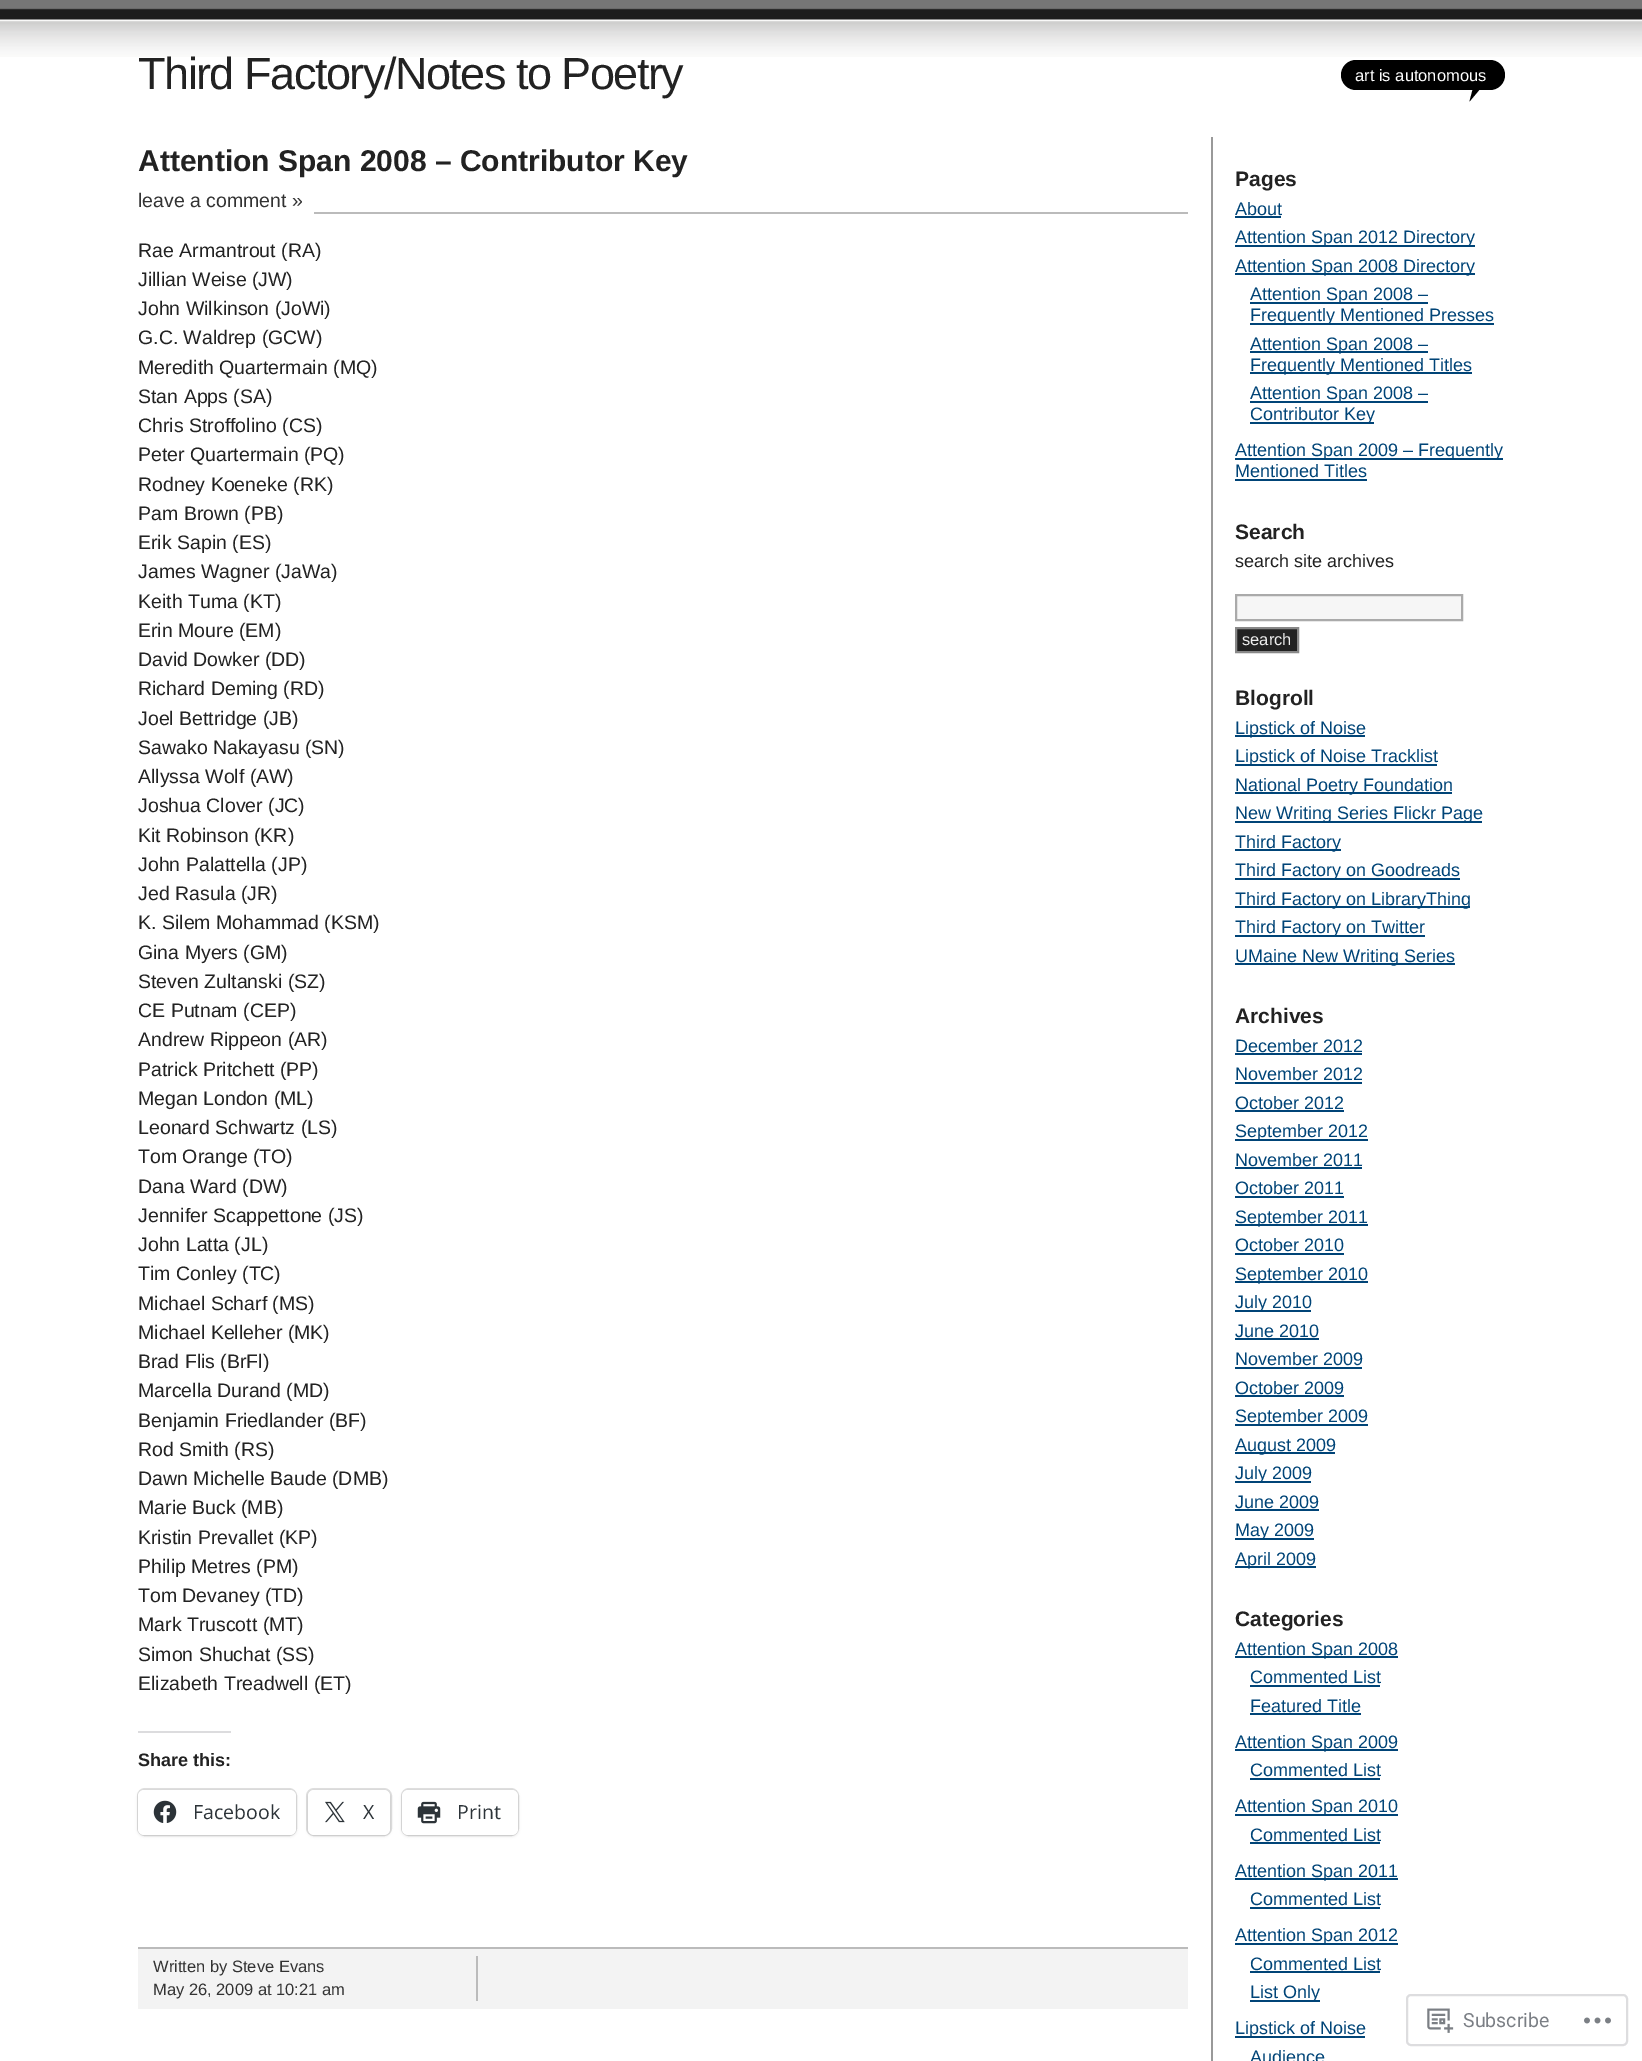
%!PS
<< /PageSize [1642 2061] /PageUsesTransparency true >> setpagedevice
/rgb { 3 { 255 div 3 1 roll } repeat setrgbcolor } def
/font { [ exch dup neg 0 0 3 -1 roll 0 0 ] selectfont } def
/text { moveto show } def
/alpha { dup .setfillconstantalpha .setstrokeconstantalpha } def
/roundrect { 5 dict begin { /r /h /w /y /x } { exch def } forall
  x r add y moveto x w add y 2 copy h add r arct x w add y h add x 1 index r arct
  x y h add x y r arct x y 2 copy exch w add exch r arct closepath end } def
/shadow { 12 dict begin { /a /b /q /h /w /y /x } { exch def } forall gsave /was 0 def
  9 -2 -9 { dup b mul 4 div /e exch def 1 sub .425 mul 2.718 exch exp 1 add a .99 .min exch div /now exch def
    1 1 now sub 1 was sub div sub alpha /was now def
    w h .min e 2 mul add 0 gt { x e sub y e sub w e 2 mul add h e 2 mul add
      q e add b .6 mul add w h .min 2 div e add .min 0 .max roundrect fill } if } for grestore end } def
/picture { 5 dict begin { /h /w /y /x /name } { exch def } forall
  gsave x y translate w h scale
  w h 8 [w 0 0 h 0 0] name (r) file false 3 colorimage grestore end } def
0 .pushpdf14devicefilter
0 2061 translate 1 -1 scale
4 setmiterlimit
255 255 255 rgb
0 0 1642 2061 rectfill
(img_01.rgb) 0 0 1642 57 picture
0 0 0 rgb
1488 79.5 moveto -18.5 22 rlineto 8 -30.5 rlineto closepath fill
1341 60 164 30 15 roundrect fill
187 187 187 rgb
314 212 874 2 rectfill
220 220 222 rgb
138 1731 93 2 rectfill
224 224 224 rgb
2 setlinewidth
138 1789 158 46 7 roundrect stroke
0 0 0 rgb
138 1791 158 45 6 1.5 0.12 shadow
255 255 255 rgb
138 1790 158 45 6 roundrect fill
(img_02.rgb) 153 1800 24 23 picture
224 224 224 rgb
307 1789 84 46 7 roundrect stroke
0 0 0 rgb
308 1791 82 45 6 1.5 0.12 shadow
255 255 255 rgb
308 1790 82 45 6 roundrect fill
(img_03.rgb) 325 1801 20 22 picture
224 224 224 rgb
402 1789 116 46 7 roundrect stroke
0 0 0 rgb
402 1791 116 45 6 1.5 0.12 shadow
255 255 255 rgb
402 1790 116 45 6 roundrect fill
(img_04.rgb) 417 1801 24 23 picture
243 243 243 rgb
138 1949 1050 60 rectfill
187 187 187 rgb
138 1947 1050 2 rectfill
476 1956 2 45 rectfill
153 153 153 rgb
1211 137 2 1924 rectfill
0 68 119 rgb
1235 216 46 2 rectfill
1235 245 240 2 rectfill
1235 273 240 2 rectfill
1250 302 178 2 rectfill
1250 323 244 2 rectfill
1250 351 178 2 rectfill
1250 372 222 2 rectfill
1250 401 178 2 rectfill
1250 422 124 2 rectfill
1235 458 268 2 rectfill
1235 479 132 2 rectfill
246 246 246 rgb
1236 595 moveto 226 0 rlineto 0 25 rlineto -226 0 rlineto closepath gsave fill grestore
170 170 170 rgb
stroke
34 34 34 rgb
1236 628 moveto 62 0 rlineto 0 24 rlineto -62 0 rlineto closepath gsave fill grestore
136 136 136 rgb
stroke
0 68 119 rgb
1235 735 130 2 rectfill
1235 764 202 2 rectfill
1235 792 217 2 rectfill
1235 821 247 2 rectfill
1235 849 106 2 rectfill
1235 878 225 2 rectfill
1235 906 235 2 rectfill
1235 935 190 2 rectfill
1235 963 220 2 rectfill
1235 1053 127 2 rectfill
1235 1082 127 2 rectfill
1235 1110 109 2 rectfill
1235 1139 133 2 rectfill
1235 1167 127 2 rectfill
1235 1196 109 2 rectfill
1235 1224 133 2 rectfill
1235 1253 109 2 rectfill
1235 1281 133 2 rectfill
1235 1310 76 2 rectfill
1235 1338 84 2 rectfill
1235 1367 127 2 rectfill
1235 1395 109 2 rectfill
1235 1424 133 2 rectfill
1235 1452 100 2 rectfill
1235 1481 76 2 rectfill
1235 1509 84 2 rectfill
1235 1538 79 2 rectfill
1235 1566 81 2 rectfill
1235 1656 163 2 rectfill
1250 1685 130 2 rectfill
1250 1713 111 2 rectfill
1235 1749 163 2 rectfill
1250 1778 130 2 rectfill
1235 1814 163 2 rectfill
1250 1842 130 2 rectfill
1235 1878 163 2 rectfill
1250 1907 130 2 rectfill
1235 1943 163 2 rectfill
1250 1971 130 2 rectfill
1250 2000 70 2 rectfill
1235 2036 130 2 rectfill
221 221 223 rgb
1407 1995 220 50 4 roundrect stroke
(img_05.rgb) 1427 2008 27 25 picture
(img_06.rgb) 1584 2017 27 7 picture
/LiberationSans-Regular 45 font
34 34 34 rgb
138 89 moveto -1.5 0 (Third Factory/Notes to Poetry) ashow
/LiberationSans-Regular 16.5 font
255 255 255 rgb
(art is autonomous) 1355 81 text
/LiberationSans-Bold 30 font
34 34 34 rgb
(Attention Span 2008 – Contributor Key) 138 171 text
/LiberationSans-Regular 19.5 font
51 51 51 rgb
(leave a comment ») 138 207 text
34 34 34 rgb
(Rae Armantrout \(RA\)) 138 257 text
(Jillian Weise \(JW\)) 138 286 text
(John Wilkinson \(JoWi\)) 138 315 text
(G.C. Waldrep \(GCW\)) 138 344 text
(Meredith Quartermain \(MQ\)) 138 374 text
(Stan Apps \(SA\)) 138 403 text
(Chris Stroffolino \(CS\)) 138 432 text
(Peter Quartermain \(PQ\)) 138 461 text
(Rodney Koeneke \(RK\)) 138 491 text
(Pam Brown \(PB\)) 138 520 text
(Erik Sapin \(ES\)) 138 549 text
(James Wagner \(JaWa\)) 138 578 text
(Keith Tuma \(KT\)) 138 608 text
(Erin Moure \(EM\)) 138 637 text
(David Dowker \(DD\)) 138 666 text
(Richard Deming \(RD\)) 138 695 text
(Joel Bettridge \(JB\)) 138 725 text
(Sawako Nakayasu \(SN\)) 138 754 text
(Allyssa Wolf \(AW\)) 138 783 text
(Joshua Clover \(JC\)) 138 812 text
(Kit Robinson \(KR\)) 138 842 text
(John Palattella \(JP\)) 138 871 text
(Jed Rasula \(JR\)) 138 900 text
(K. Silem Mohammad \(KSM\)) 138 929 text
(Gina Myers \(GM\)) 138 959 text
(Steven Zultanski \(SZ\)) 138 988 text
(CE Putnam \(CEP\)) 138 1017 text
(Andrew Rippeon \(AR\)) 138 1046 text
(Patrick Pritchett \(PP\)) 138 1076 text
(Megan London \(ML\)) 138 1105 text
(Leonard Schwartz \(LS\)) 138 1134 text
(Tom Orange \(TO\)) 138 1163 text
(Dana Ward \(DW\)) 138 1193 text
(Jennifer Scappettone \(JS\)) 138 1222 text
(John Latta \(JL\)) 138 1251 text
(Tim Conley \(TC\)) 138 1280 text
(Michael Scharf \(MS\)) 138 1310 text
(Michael Kelleher \(MK\)) 138 1339 text
(Brad Flis \(BrFl\)) 138 1368 text
(Marcella Durand \(MD\)) 138 1397 text
(Benjamin Friedlander \(BF\)) 138 1427 text
(Rod Smith \(RS\)) 138 1456 text
(Dawn Michelle Baude \(DMB\)) 138 1485 text
(Marie Buck \(MB\)) 138 1514 text
(Kristin Prevallet \(KP\)) 138 1544 text
(Philip Metres \(PM\)) 138 1573 text
(Tom Devaney \(TD\)) 138 1602 text
(Mark Truscott \(MT\)) 138 1631 text
(Simon Shuchat \(SS\)) 138 1661 text
(Elizabeth Treadwell \(ET\)) 138 1690 text
/LiberationSans-Bold 18 font
(Share this:) 138 1766 text
/OpenSans-Regular 19.5 font
44 51 56 rgb
(Facebook) 193 1819 text
(X) 363 1819 text
(Print) 457 1819 text
/LiberationSans-Regular 16.5 font
51 51 51 rgb
(Written by Steve Evans) 153 1972 text
(May 26, 2009 at 10:21 am) 153 1995 text
/LiberationSans-Bold 21 font
34 34 34 rgb
(Pages) 1235 186 text
/LiberationSans-Regular 18 font
0 68 119 rgb
(About) 1235 215 text
(Attention Span 2012 Directory) 1235 243 text
(Attention Span 2008 Directory) 1235 272 text
(Attention Span 2008 –) 1250 300 text
(Frequently Mentioned Presses) 1250 321 text
(Attention Span 2008 –) 1250 350 text
(Frequently Mentioned Titles) 1250 371 text
(Attention Span 2008 –) 1250 399 text
(Contributor Key) 1250 420 text
(Attention Span 2009 – Frequently) 1235 456 text
(Mentioned Titles) 1235 477 text
/LiberationSans-Bold 21 font
34 34 34 rgb
(Search) 1235 539 text
/LiberationSans-Regular 18 font
(search site archives) 1235 567 text
/LiberationSans-Regular 16.5 font
238 238 238 rgb
(search) 1242 645 text
/LiberationSans-Bold 21 font
34 34 34 rgb
(Blogroll) 1235 705 text
/LiberationSans-Regular 18 font
0 68 119 rgb
(Lipstick of Noise) 1235 734 text
(Lipstick of Noise Tracklist) 1235 762 text
(National Poetry Foundation) 1235 791 text
(New Writing Series Flickr Page) 1235 819 text
(Third Factory) 1235 848 text
(Third Factory on Goodreads) 1235 876 text
(Third Factory on LibraryThing) 1235 905 text
(Third Factory on Twitter) 1235 933 text
(UMaine New Writing Series) 1235 962 text
/LiberationSans-Bold 21 font
34 34 34 rgb
(Archives) 1235 1023 text
/LiberationSans-Regular 18 font
0 68 119 rgb
(December 2012) 1235 1052 text
(November 2012) 1235 1080 text
(October 2012) 1235 1109 text
(September 2012) 1235 1137 text
(November 2011) 1235 1166 text
(October 2011) 1235 1194 text
(September 2011) 1235 1223 text
(October 2010) 1235 1251 text
(September 2010) 1235 1280 text
(July 2010) 1235 1308 text
(June 2010) 1235 1337 text
(November 2009) 1235 1365 text
(October 2009) 1235 1394 text
(September 2009) 1235 1422 text
(August 2009) 1235 1451 text
(July 2009) 1235 1479 text
(June 2009) 1235 1508 text
(May 2009) 1235 1536 text
(April 2009) 1235 1565 text
/LiberationSans-Bold 21 font
34 34 34 rgb
(Categories) 1235 1626 text
/LiberationSans-Regular 18 font
0 68 119 rgb
(Attention Span 2008) 1235 1655 text
(Commented List) 1250 1683 text
(Featured Title) 1250 1712 text
(Attention Span 2009) 1235 1748 text
(Commented List) 1250 1776 text
(Attention Span 2010) 1235 1812 text
(Commented List) 1250 1841 text
(Attention Span 2011) 1235 1877 text
(Commented List) 1250 1905 text
(Attention Span 2012) 1235 1941 text
(Commented List) 1250 1970 text
(List Only) 1250 1998 text
(Lipstick of Noise) 1235 2034 text
(Audience) 1250 2063 text
/Roboto-Regular 19.5 font
123 127 133 rgb
(Subscribe) 1463 2027 text
.poppdf14devicefilter showpage
